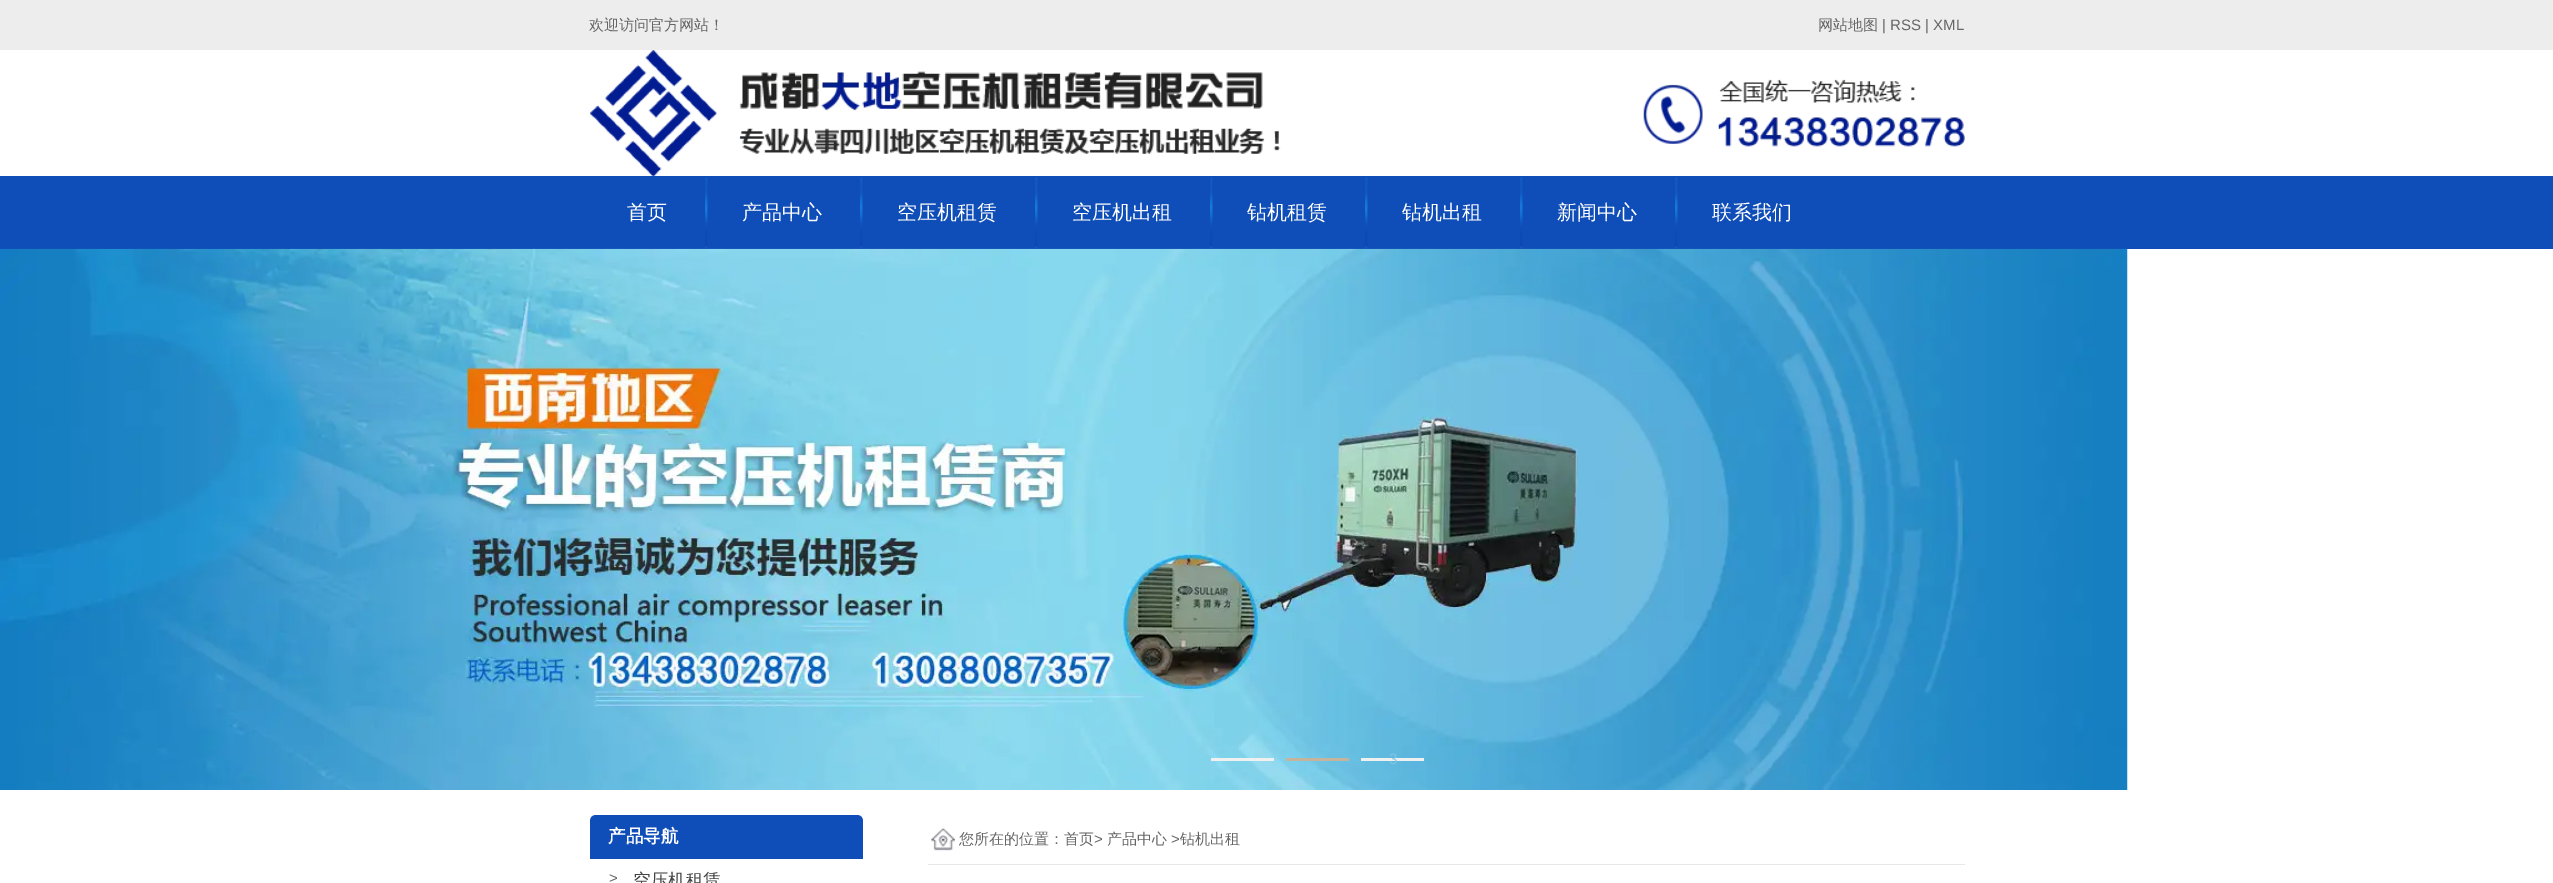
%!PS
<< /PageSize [2553 883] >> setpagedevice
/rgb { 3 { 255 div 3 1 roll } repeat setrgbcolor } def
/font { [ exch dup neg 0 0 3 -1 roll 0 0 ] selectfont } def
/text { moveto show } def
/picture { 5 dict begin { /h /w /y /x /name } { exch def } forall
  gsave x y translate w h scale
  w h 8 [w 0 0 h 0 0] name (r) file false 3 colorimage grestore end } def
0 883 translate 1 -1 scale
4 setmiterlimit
255 255 255 rgb
0 0 2553 883 rectfill
237 237 237 rgb
0 0 2553 50 rectfill
(img_01.rgb) 590 50 1375 126 picture
15 78 184 rgb
0 176 2553 73 rectfill
(img_02.rgb) 705 177 3 71 picture
(img_02.rgb) 860 177 3 71 picture
(img_02.rgb) 1035 177 3 71 picture
(img_02.rgb) 1210 177 3 71 picture
(img_02.rgb) 1365 177 3 71 picture
(img_02.rgb) 1520 177 3 71 picture
(img_02.rgb) 1675 177 3 71 picture
(img_03.rgb) 0 248 2128 542 picture
240 240 240 rgb
1211 758 63 3 rectfill
197 179 155 rgb
1286 758 63 3 rectfill
240 240 240 rgb
1361 758 63 3 rectfill
15 78 184 rgb
596 815 moveto 261 0 rlineto 3.5 0 6 2.5 6 6 rcurveto 0 38 rlineto -273 0 rlineto 0 -38 rlineto 0 -3.5 2.5 -6 6 -6 rcurveto closepath fill
(img_04.rgb) 931 828 24 23 picture
232 232 232 rgb
928 864 1037 1 rectfill
/WenQuanYiZenHei-Medium 15 font
102 102 102 rgb
(欢迎访问官方网站！) 589 30 text
(网站地图) 1818 30 text
/LiberationSans-Regular 15 font
(| RSS | XML) 1882 30 text
/WenQuanYiZenHei-Medium 20 font
255 255 255 rgb
(首页) 627 219 text
(产品中心) 742 219 text
(空压机租赁) 897 219 text
(空压机出租) 1072 219 text
(钻机租赁) 1247 219 text
(钻机出租) 1402 219 text
(新闻中心) 1557 219 text
(联系我们) 1712 219 text
/LiberationSans-Regular 15 font
129 197 226 rgb
(3) 1389 764 text
/WenQuanYiZenHei-Bold 17.5 font
255 255 255 rgb
(产品导航) 608 842 text
/LiberationSans-Regular 15 font
102 102 102 rgb
(>) 609 883 text
/WenQuanYiZenHei-Medium 17.5 font
68 68 68 rgb
(空压机租赁) 633 886 text
/WenQuanYiZenHei-Medium 15 font
102 102 102 rgb
(您所在的位置：首页) 959 844 text
/LiberationSans-Regular 15 font
(>) 1094 844 text
/WenQuanYiZenHei-Medium 15 font
(产品中心) 1107 844 text
/LiberationSans-Regular 15 font
(>) 1171 844 text
/WenQuanYiZenHei-Medium 15 font
(钻机出租) 1180 844 text
showpage
